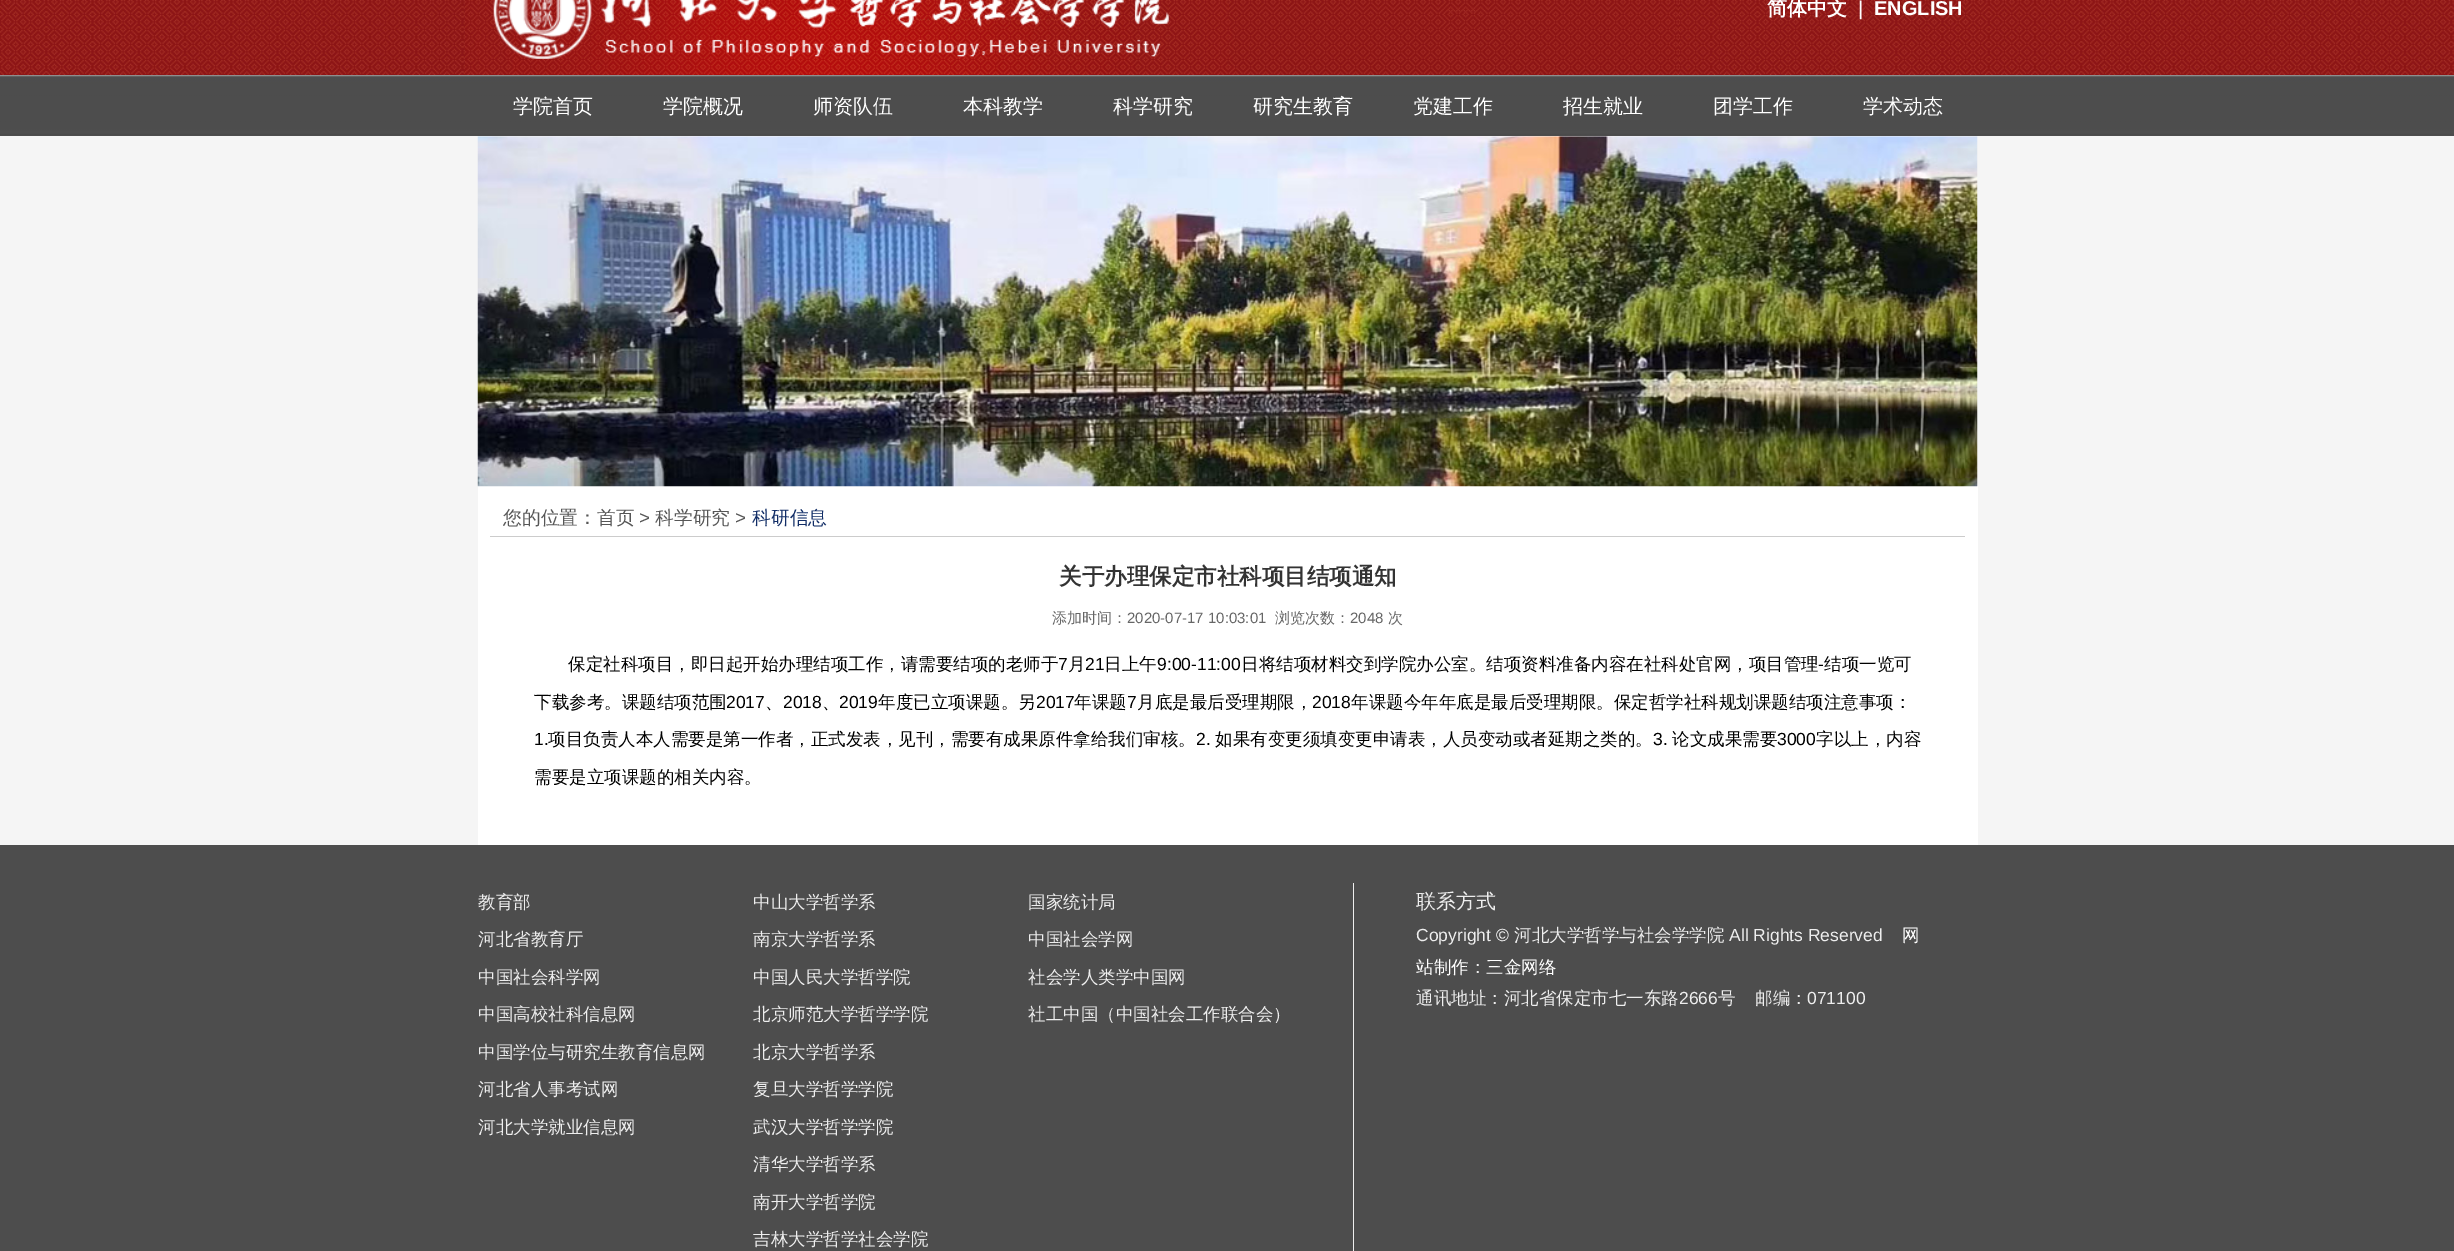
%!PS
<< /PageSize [2454 1251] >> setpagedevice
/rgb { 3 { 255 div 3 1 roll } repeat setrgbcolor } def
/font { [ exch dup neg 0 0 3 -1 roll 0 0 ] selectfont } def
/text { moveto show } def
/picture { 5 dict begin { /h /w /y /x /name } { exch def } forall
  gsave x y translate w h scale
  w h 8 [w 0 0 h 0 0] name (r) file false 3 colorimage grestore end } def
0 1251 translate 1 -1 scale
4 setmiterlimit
255 255 255 rgb
0 0 2454 1251 rectfill
(img_01.rgb) 0 0 2454 75 picture
(img_02.rgb) 465 0 1214 75 picture
(img_03.rgb) 493 0 676 59 picture
(img_04.rgb) 0 75 2454 61 picture
245 245 245 rgb
0 136 2454 709 rectfill
255 255 255 rgb
478 486 1500 359 rectfill
(img_05.rgb) 477 136 1501 351 picture
204 204 204 rgb
490 536 1475 1 rectfill
77 77 77 rgb
0 845 2454 406 rectfill
238 238 238 rgb
1353 883 1 368 rectfill
/WenQuanYiZenHei-Bold 20 font
255 255 255 rgb
(简体中文) 1767 15 text
/LiberationSans-Regular 20 font
(|) 1858 15 text
/LiberationSans-Bold 20 font
(ENGLISH) 1874 15 text
/WenQuanYiZenHei-Medium 20 font
(学院首页) 513 113 text
(学院概况) 663 113 text
(师资队伍) 813 113 text
(本科教学) 963 113 text
(科学研究) 1113 113 text
(研究生教育) 1253 113 text
(党建工作) 1413 113 text
(招生就业) 1563 113 text
(团学工作) 1713 113 text
(学术动态) 1863 113 text
/WenQuanYiZenHei-Medium 18.75 font
86 86 86 rgb
(您的位置：首页) 503 524 text
/LiberationSans-Regular 18.75 font
(>) 639 524 text
/WenQuanYiZenHei-Medium 18.75 font
(科学研究) 655 524 text
/LiberationSans-Regular 18.75 font
(>) 735 524 text
/WenQuanYiZenHei-Medium 18.75 font
18 46 103 rgb
(科研信息) 752 524 text
/WenQuanYiZenHei-Bold 22.5 font
51 51 51 rgb
(关于办理保定市社科项目结项通知) 1059 584 text
/WenQuanYiZenHei-Medium 15 font
102 102 102 rgb
(添加时间：) 1052 623 text
/LiberationSans-Regular 15 font
(2020-07-17 10:03:01) 1127 623 text
/WenQuanYiZenHei-Medium 15 font
(浏览次数：) 1275 623 text
/LiberationSans-Regular 15 font
(2048) 1350 623 text
/WenQuanYiZenHei-Medium 15 font
(次) 1388 623 text
/WenQuanYiZenHei-Medium 17.5 font
0 0 0 rgb
(保定社科项目，即日起开始办理结项工作，请需要结项的老师于) 568 670 text
/LiberationSans-Regular 17.5 font
(7) 1058 670 text
/WenQuanYiZenHei-Medium 17.5 font
(月) 1068 670 text
/LiberationSans-Regular 17.5 font
(21) 1085 670 text
/WenQuanYiZenHei-Medium 17.5 font
(日上午) 1104 670 text
/LiberationSans-Regular 17.5 font
(9:00-11:00) 1157 670 text
/WenQuanYiZenHei-Medium 17.5 font
(日将结项材料交到学院办公室。结项资料准备内容在社科处官网，项目管理) 1241 670 text
/LiberationSans-Regular 17.5 font
(-) 1818 670 text
/WenQuanYiZenHei-Medium 17.5 font
(结项一览可) 1824 670 text
(下载参考。课题结项范围) 534 708 text
/LiberationSans-Regular 17.5 font
(2017) 726 708 text
/WenQuanYiZenHei-Medium 17.5 font
(、) 765 708 text
/LiberationSans-Regular 17.5 font
(2018) 783 708 text
/WenQuanYiZenHei-Medium 17.5 font
(、) 822 708 text
/LiberationSans-Regular 17.5 font
(2019) 839 708 text
/WenQuanYiZenHei-Medium 17.5 font
(年度已立项课题。另) 878 708 text
/LiberationSans-Regular 17.5 font
(2017) 1036 708 text
/WenQuanYiZenHei-Medium 17.5 font
(年课题) 1074 708 text
/LiberationSans-Regular 17.5 font
(7) 1127 708 text
/WenQuanYiZenHei-Medium 17.5 font
(月底是最后受理期限，) 1137 708 text
/LiberationSans-Regular 17.5 font
(2018) 1312 708 text
/WenQuanYiZenHei-Medium 17.5 font
(年课题今年年底是最后受理期限。保定哲学社科规划课题结项注意事项：) 1351 708 text
/LiberationSans-Regular 17.5 font
(1.) 534 745 text
/WenQuanYiZenHei-Medium 17.5 font
(项目负责人本人需要是第一作者，正式发表，见刊，需要有成果原件拿给我们审核。) 548 745 text
/LiberationSans-Regular 17.5 font
(2.) 1196 745 text
/WenQuanYiZenHei-Medium 17.5 font
(如果有变更须填变更申请表，人员变动或者延期之类的。) 1215 745 text
/LiberationSans-Regular 17.5 font
(3.) 1653 745 text
/WenQuanYiZenHei-Medium 17.5 font
(论文成果需要) 1672 745 text
/LiberationSans-Regular 17.5 font
(3000) 1777 745 text
/WenQuanYiZenHei-Medium 17.5 font
(字以上，内容) 1816 745 text
(需要是立项课题的相关内容。) 534 783 text
238 238 238 rgb
(教育部) 478 908 text
(河北省教育厅) 478 945 text
(中国社会科学网) 478 983 text
(中国高校社科信息网) 478 1020 text
(中国学位与研究生教育信息网) 478 1058 text
(河北省人事考试网) 478 1095 text
(河北大学就业信息网) 478 1133 text
(中山大学哲学系) 753 908 text
(南京大学哲学系) 753 945 text
(中国人民大学哲学院) 753 983 text
(北京师范大学哲学学院) 753 1020 text
(北京大学哲学系) 753 1058 text
(复旦大学哲学学院) 753 1095 text
(武汉大学哲学学院) 753 1133 text
(清华大学哲学系) 753 1170 text
(南开大学哲学院) 753 1208 text
(吉林大学哲学社会学院) 753 1245 text
(国家统计局) 1028 908 text
(中国社会学网) 1028 945 text
(社会学人类学中国网) 1028 983 text
(社工中国（中国社会工作联合会）) 1028 1020 text
/WenQuanYiZenHei-Medium 20 font
(联系方式) 1416 908 text
/LiberationSans-Regular 17.5 font
(Copyright) 1416 941 text
255 255 255 rgb
(©) 1496 941 text
/WenQuanYiZenHei-Medium 17.5 font
238 238 238 rgb
(河北大学哲学与社会学学院) 1514 941 text
/LiberationSans-Regular 17.5 font
(All Rights Reserved) 1729 941 text
/WenQuanYiZenHei-Medium 17.5 font
255 255 255 rgb
(网) 1902 941 text
(站制作) 1416 973 text
238 238 238 rgb
(：) 1469 973 text
255 255 255 rgb
(三金网络) 1486 973 text
238 238 238 rgb
(通讯地址：河北省保定市七一东路) 1416 1004 text
/LiberationSans-Regular 17.5 font
(2666) 1679 1004 text
/WenQuanYiZenHei-Medium 17.5 font
(号) 1718 1004 text
(邮编：) 1755 1004 text
/LiberationSans-Regular 17.5 font
(071100) 1807 1004 text
showpage
